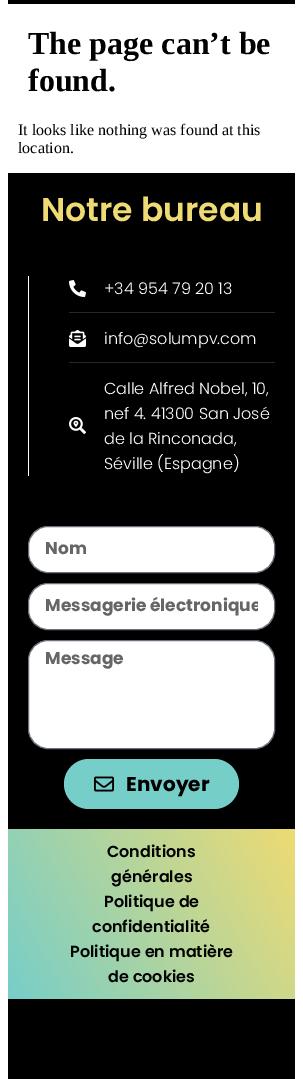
%!PS
<< /PageSize [303 1079] >> setpagedevice
/rgb { 3 { 255 div 3 1 roll } repeat setrgbcolor } def
/font { [ exch dup neg 0 0 3 -1 roll 0 0 ] selectfont } def
/text { moveto show } def
/roundrect { 5 dict begin { /r /h /w /y /x } { exch def } forall
  x r add y moveto x w add y 2 copy h add r arct x w add y h add x 1 index r arct
  x y h add x y r arct x y 2 copy exch w add exch r arct closepath end } def
/picture { 5 dict begin { /h /w /y /x /name } { exch def } forall
  gsave x y translate w h scale
  w h 8 [w 0 0 h 0 0] name (r) file false 3 colorimage grestore end } def
0 1079 translate 1 -1 scale
4 setmiterlimit
255 255 255 rgb
0 0 303 1079 rectfill
0 0 0 rgb
8 0 287 4 rectfill
8 173 287 906 rectfill
255 255 255 rgb
28 276 1 200 rectfill
(img_01.rgb) 69 280 17 17 picture
40 40 40 rgb
69 312 206 1 rectfill
(img_02.rgb) 69 330 17 17 picture
69 362 206 1 rectfill
(img_03.rgb) 69 417 17 17 picture
255 255 255 rgb
28.5 526.5 246 46 19.5 roundrect gsave fill grestore
105 114 125 rgb
stroke
255 255 255 rgb
28.5 583.5 246 46 19.5 roundrect gsave fill grestore
105 114 125 rgb
stroke
255 255 255 rgb
28.5 640.5 246 108 19.5 roundrect gsave fill grestore
105 114 125 rgb
stroke
118 206 201 rgb
64 759 175 50 25 roundrect fill
(img_04.rgb) 94 776 20 16 picture
gsave 8 829 moveto 287 0 rlineto 0 170 rlineto -287 0 rlineto closepath clip newpath
<< /ShadingType 2 /ColorSpace /DeviceRGB /Coords [5.7 995 297 833] /Extend [true true] /Function << /FunctionType 2 /Domain [0 1] /C0 [0.463 0.808 0.788] /C1 [0.933 0.859 0.451] /N 1 >> >> shfill grestore
/LiberationSerif-Bold 32 font
0 0 0 rgb
(The page can’t be) 28 54 text
(found.) 28 91 text
/LiberationSerif-Regular 16 font
(It looks like nothing was found at this) 18 135 text
(location.) 18 153 text
/Poppins-SemiBold 33 font
238 219 115 rgb
(Notre bureau) 41 221 text
/Poppins-Light 16 font
255 255 255 rgb
(+34 954 79 20 13) 104 294 text
(info@solumpv.com) 104 344 text
(Calle Alfred Nobel, 10,) 104 394 text
(nef 4. 41300 San José) 104 419 text
(de la Rinconada,) 104 444 text
(Séville \(Espagne\)) 104 469 text
/Poppins-Bold 17 font
102 102 102 rgb
(Nom) 45 554 text
gsave
45 592 213 26 rectclip
(Messagerie électronique) 45 611 text
grestore
(Message) 45 664 text
/Poppins-Bold 20 font
0 0 0 rgb
(Envoyer) 126 791 text
/Poppins-SemiBold 16 font
(Conditions) 107 857 text
(générales) 111 882 text
(Politique de) 104 907 text
(confidentialité) 92 932 text
(Politique en matière) 70 957 text
(de cookies) 108 982 text
showpage
